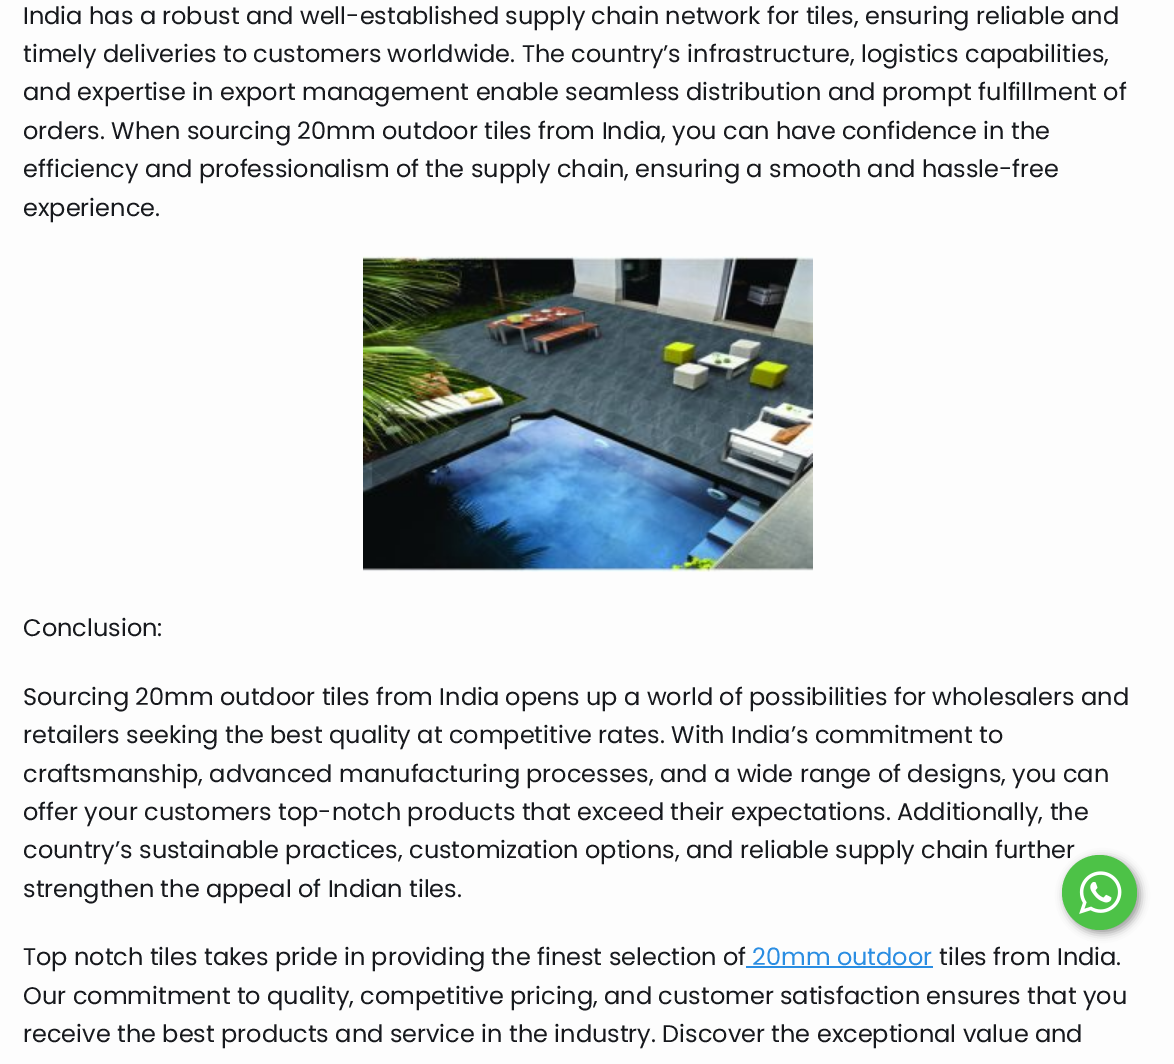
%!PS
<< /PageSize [1174 1064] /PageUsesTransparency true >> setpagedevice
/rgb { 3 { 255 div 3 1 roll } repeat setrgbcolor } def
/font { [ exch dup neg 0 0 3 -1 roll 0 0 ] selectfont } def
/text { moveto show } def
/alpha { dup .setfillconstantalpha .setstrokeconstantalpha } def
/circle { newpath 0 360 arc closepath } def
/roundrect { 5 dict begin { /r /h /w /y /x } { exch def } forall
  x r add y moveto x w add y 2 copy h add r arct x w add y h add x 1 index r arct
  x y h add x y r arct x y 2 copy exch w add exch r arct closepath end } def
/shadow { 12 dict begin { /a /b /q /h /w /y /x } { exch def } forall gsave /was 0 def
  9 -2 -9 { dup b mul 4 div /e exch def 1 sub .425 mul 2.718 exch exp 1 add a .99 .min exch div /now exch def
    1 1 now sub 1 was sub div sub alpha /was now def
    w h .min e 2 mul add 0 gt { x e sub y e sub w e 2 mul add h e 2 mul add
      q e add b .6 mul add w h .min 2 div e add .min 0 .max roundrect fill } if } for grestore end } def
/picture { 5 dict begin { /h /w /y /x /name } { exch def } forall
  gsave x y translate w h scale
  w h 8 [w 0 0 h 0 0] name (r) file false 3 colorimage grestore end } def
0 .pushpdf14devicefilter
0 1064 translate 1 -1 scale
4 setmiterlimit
253 253 253 rgb
0 0 1174 1064 rectfill
(img_01.rgb) 363 256 450 316 picture
42 141 226 rgb
746 966 187 2 rectfill
0 0 0 rgb
1065 858 75 75 37.5 4.5 0.4 shadow
/Poppins-Regular 24 font
23 25 29 rgb
(India has a robust and well-established supply chain network for tiles, ensuring reliable and) 23 24 text
(timely deliveries to customers worldwide. The country’s infrastructure, logistics capabilities,) 23 62 text
(and expertise in export management enable seamless distribution and prompt fulfillment of) 23 100 text
(orders. When sourcing 20mm outdoor tiles from India, you can have confidence in the) 23 139 text
(efficiency and professionalism of the supply chain, ensuring a smooth and hassle-free) 23 177 text
(experience.) 23 216 text
(Conclusion:) 23 636 text
(Sourcing 20mm outdoor tiles from India opens up a world of possibilities for wholesalers and) 23 705 text
(retailers seeking the best quality at competitive rates. With India’s commitment to) 23 743 text
(craftsmanship, advanced manufacturing processes, and a wide range of designs, you can) 23 782 text
(offer your customers top-notch products that exceed their expectations. Additionally, the) 23 820 text
(country’s sustainable practices, customization options, and reliable supply chain further) 23 858 text
(strengthen the appeal of Indian tiles.) 23 897 text
(Top notch tiles takes pride in providing the finest selection of) 23 965 text
42 141 226 rgb
(20mm outdoor) 752 965 text
23 25 29 rgb
(tiles from India.) 939 965 text
(Our commitment to quality, competitive pricing, and customer satisfaction ensures that you) 23 1004 text
(receive the best products and service in the industry. Discover the exceptional value and) 23 1042 text
77 194 71 rgb
1099.5 892.5 37.5 circle fill
(img_02.rgb) 1079 871 43 43 picture
.poppdf14devicefilter showpage
